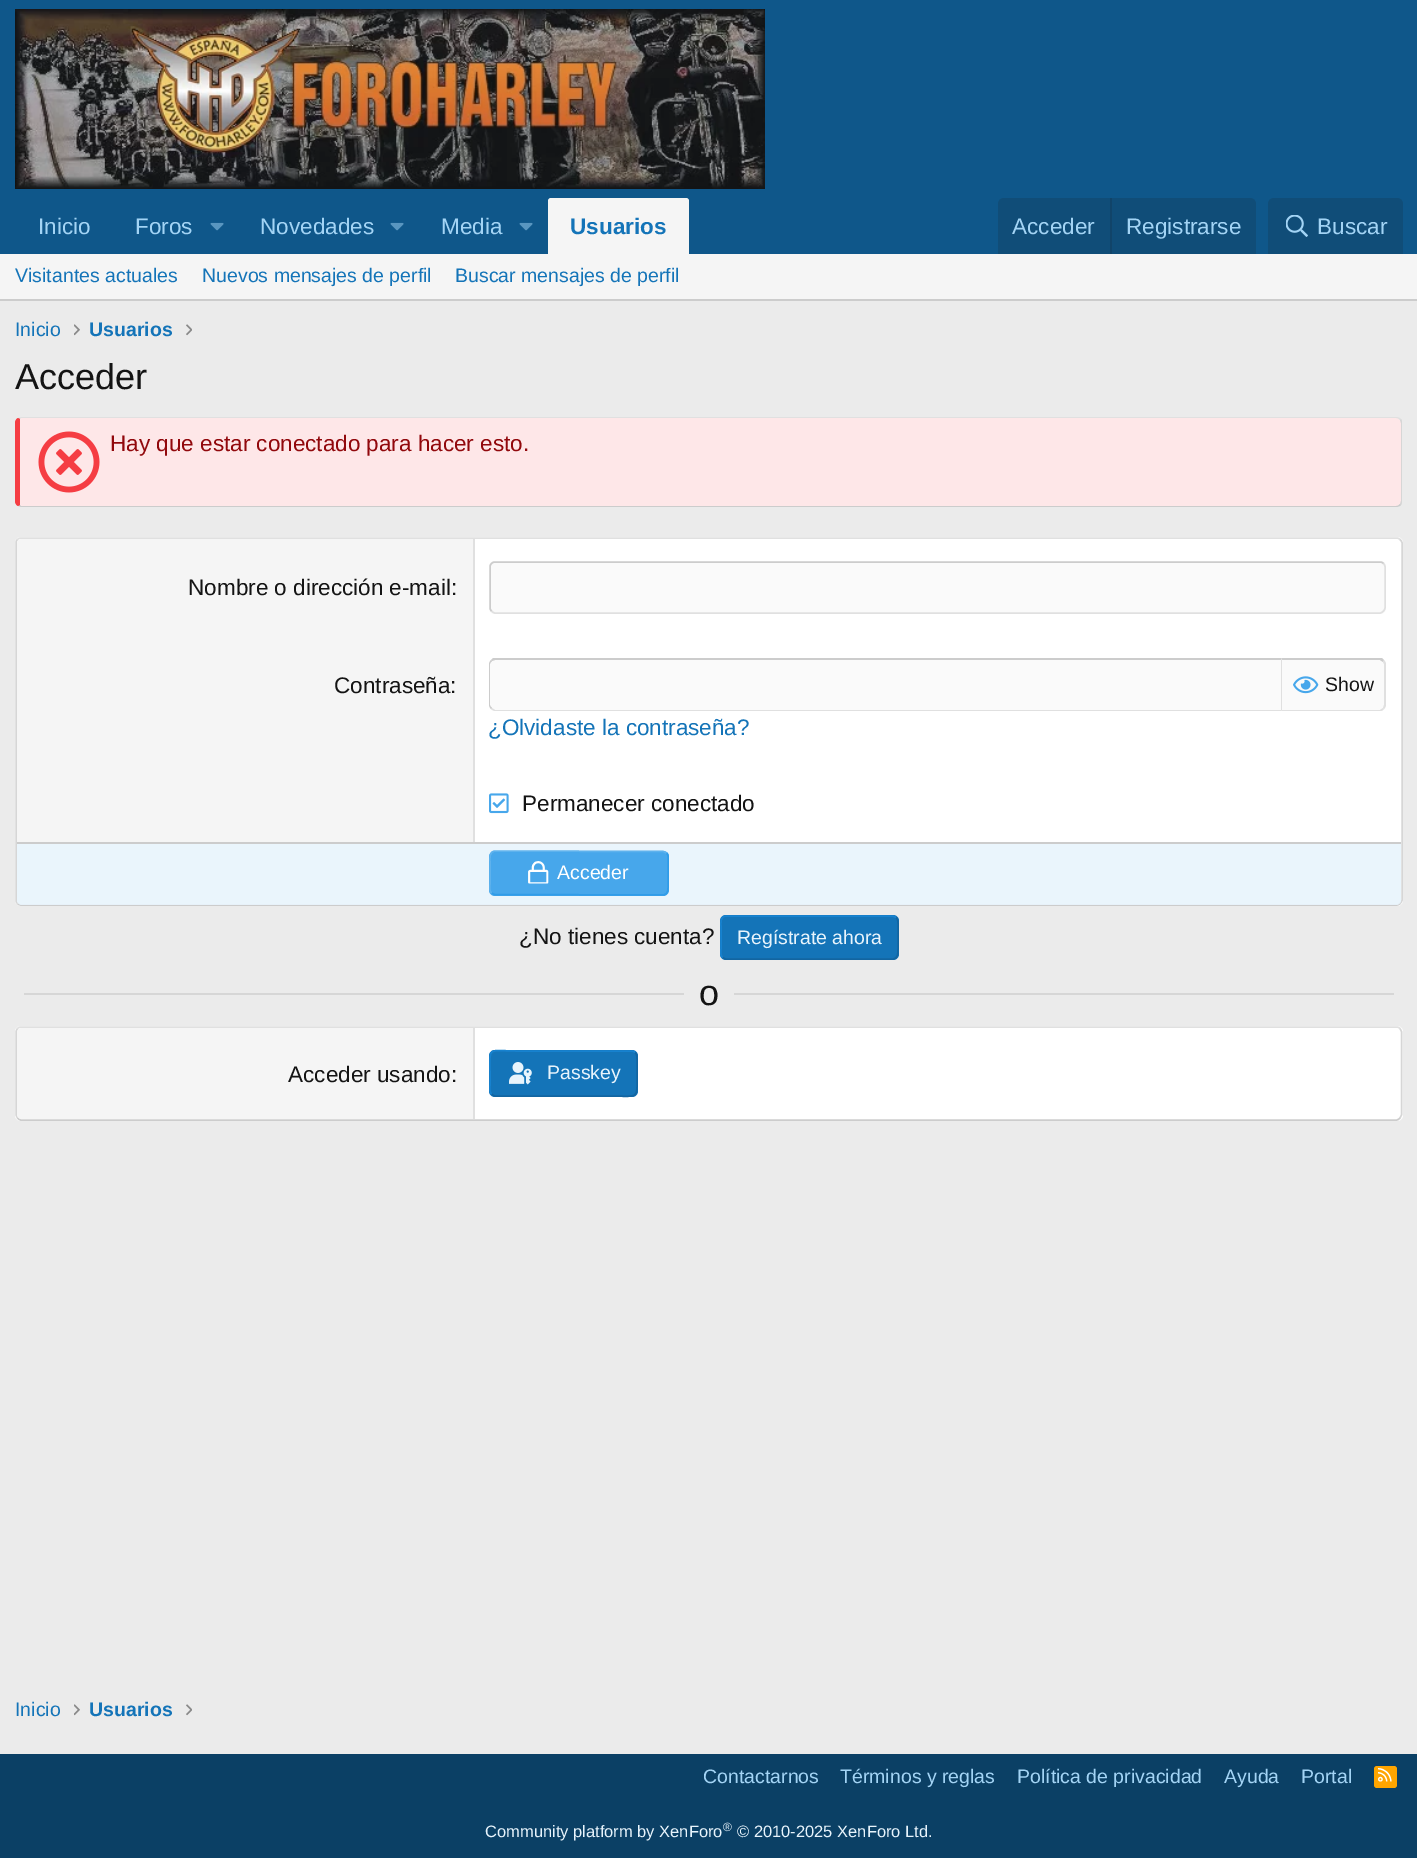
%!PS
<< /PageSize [1417 1858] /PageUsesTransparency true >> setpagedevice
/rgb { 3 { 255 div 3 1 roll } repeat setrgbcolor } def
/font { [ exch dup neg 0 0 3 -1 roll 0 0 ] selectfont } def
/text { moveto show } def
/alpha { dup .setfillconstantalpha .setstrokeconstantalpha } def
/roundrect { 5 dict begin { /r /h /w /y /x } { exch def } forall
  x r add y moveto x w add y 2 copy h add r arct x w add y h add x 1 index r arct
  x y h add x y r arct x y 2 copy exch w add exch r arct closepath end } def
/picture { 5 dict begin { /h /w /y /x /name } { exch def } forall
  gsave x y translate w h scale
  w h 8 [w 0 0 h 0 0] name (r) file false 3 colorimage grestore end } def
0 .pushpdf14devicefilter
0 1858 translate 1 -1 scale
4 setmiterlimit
235 235 235 rgb
0 0 1417 1858 rectfill
15 87 138 rgb
0 0 1417 254 rectfill
(img_01.rgb) 15 9 750 180 picture
(img_02.rgb) 210 222 14 9 picture
(img_02.rgb) 390 222 14 9 picture
(img_02.rgb) 519 222 14 9 picture
245 245 245 rgb
551 198 moveto 135 0 rlineto 1.5 0 3 1.5 3 3 rcurveto 0 53 rlineto -141 0 rlineto 0 -53 rlineto 0 -1.5 1.5 -3 3 -3 rcurveto closepath fill
16 77 120 rgb
1004 198 moveto 246 0 rlineto 3.5 0 6 2.5 6 6 rcurveto 0 50 rlineto -258 0 rlineto 0 -50 rlineto 0 -3.5 2.5 -6 6 -6 rcurveto closepath fill
17 68 105 rgb
1110 198 2 56 rectfill
16 77 120 rgb
1274 198 moveto 123 0 rlineto 3.5 0 6 2.5 6 6 rcurveto 0 50 rlineto -135 0 rlineto 0 -50 rlineto 0 -3.5 2.5 -6 6 -6 rcurveto closepath fill
(img_03.rgb) 1286 215 22 22 picture
245 245 245 rgb
0 254 1417 45 rectfill
204 204 204 rgb
0 299 1417 2 rectfill
(img_04.rgb) 74 324 6 12 picture
(img_05.rgb) 186 324 6 12 picture
254 231 232 rgb
21 418 moveto 1375 0 rlineto 3 0 5 3 5 5 rcurveto 0 78 rlineto 0 2 -2 5 -5 5 rcurveto -1375 0 rlineto -1 0 -1 -3 -1 -5 rcurveto 0 -78 rlineto 0 -2 0 -5 1 -5 rcurveto closepath fill
224 224 224 rgb
21 417 moveto -3 1 rlineto 2 1 rlineto 1 -1 rlineto 1375 0 rlineto 2 0 3 1 4 2 rcurveto 1 -1 rlineto -1 -1 -3 -2 -5 -2 rcurveto closepath fill
214 214 214 rgb
1401 419 moveto 1 1 1 3 1 4 rcurveto 0 78 rlineto 0 1 0 3 -1 4 rcurveto -1 -1 rlineto 1 -3 rlineto 0 -78 rlineto -1 -3 rlineto closepath fill
204 204 204 rgb
21 507 moveto 1375 0 rlineto 2 0 4 -1 5 -2 rcurveto -1 -1 rlineto -1 1 -2 2 -4 2 rcurveto -1375 0 rlineto -1 -1 rlineto -2 1 rlineto closepath fill
245 61 67 rgb
15 423 moveto 0 78 rlineto 0 2 1 4 3 5 rcurveto 2 -1 rlineto 0 -86 rlineto -2 -1 rlineto -2 1 -3 3 -3 5 rcurveto closepath fill
(img_06.rgb) 38 431 62 62 picture
255 255 255 rgb
15 537 1388 369 6 roundrect fill
224 224 224 rgb
1.5 setlinewidth
17.5 539.5 moveto 1 -1 2 -1.5 3.5 -1.5 rcurveto 1375.5 0 rlineto 1.5 0 2.5 0.5 3.5 1.5 rcurveto stroke
214 214 214 rgb
1400 539.5 moveto 1 1 2 2 2 3.5 rcurveto 0 357 rlineto 0 1.5 -1 2.5 -2 3.5 rcurveto stroke
204 204 204 rgb
1400 903.5 moveto -1 1 -2 1.5 -3.5 1.5 rcurveto -1375.5 0 rlineto -1.5 0 -2.5 -0.5 -3.5 -1.5 rcurveto stroke
214 214 214 rgb
17.5 903.5 moveto -1 -1 -1.5 -2 -1.5 -3.5 rcurveto 0 -357 rlineto 0 -1.5 0.5 -2.5 1.5 -3.5 rcurveto stroke
245 245 245 rgb
22 539 moveto 452 0 rlineto 0 97 rlineto -457 0 rlineto 0 -92 rlineto 0 -3 2 -5 5 -5 rcurveto closepath fill
224 224 224 rgb
473 539 2 303 rectfill
250 250 250 rgb
489 561 897 53 6 roundrect fill
224 224 224 rgb
1383.5 563.5 moveto 1 1 1.5 2 1.5 3.5 rcurveto 0 40.5 rlineto 0 1.5 -0.5 2.5 -1.5 3.5 rcurveto -1 1 -2 2 -3.5 2 rcurveto -885 0 rlineto -1.5 0 -2.5 -1 -3.5 -2 rcurveto stroke
204 204 204 rgb
491.5 611 moveto -1 -1 -1.5 -2 -1.5 -3.5 rcurveto 0 -40.5 rlineto 0 -1.5 0.5 -2.5 1.5 -3.5 rcurveto 1 -1 2 -1.5 3.5 -1.5 rcurveto 885 0 rlineto 1.5 0 2.5 0.5 3.5 1.5 rcurveto stroke
245 245 245 rgb
17 636 456 206 rectfill
250 250 250 rgb
495 659 moveto 786 0 rlineto 0 52 rlineto -786 0 rlineto -3.5 0 -6 -2.5 -6 -6 rcurveto 0 -40 rlineto 0 -3.5 2.5 -6 6 -6 rcurveto closepath fill
204 204 204 rgb
495 660 moveto -3 1 rlineto -1 -1 rlineto 2 -2 rlineto 788 0 rlineto 0 2 rlineto closepath fill
224 224 224 rgb
1281 711 moveto 0 -1 rlineto -786 0 rlineto -3 -2 rlineto -1 1 rlineto 1 1 3 2 4 2 rcurveto closepath fill
204 204 204 rgb
489 664 moveto 0 41 rlineto 0 1 1 3 2 4 rcurveto 1 -1 rlineto -1 -1 -2 -2 -2 -3 rcurveto 0 -41 rlineto 0 -1 1 -2 2 -3 rcurveto -1 -1 rlineto -1 1 -2 3 -2 4 rcurveto closepath fill
250 250 250 rgb
1281 659 moveto 99 0 rlineto 3.5 0 6 2.5 6 6 rcurveto 0 40 rlineto 0 3.5 -2.5 6 -6 6 rcurveto -99 0 rlineto closepath fill
204 204 204 rgb
1281 658 moveto 101 0 rlineto 2 2 rlineto -1 2 rlineto -3 -2 rlineto -98 0 rlineto closepath fill
224 224 224 rgb
1386 705 moveto 0 -41 rlineto 0 -1 -1 -3 -2 -4 rcurveto -1 2 rlineto 1 2 rlineto 0 41 rlineto -1 3 rlineto 1 1 rlineto 1 -1 2 -3 2 -4 rcurveto closepath fill
1380 711 moveto 2 0 3 -1 4 -2 rcurveto -1 -1 rlineto -3 2 rlineto -98 0 rlineto -1 1 rlineto closepath fill
1282 660 moveto -1 -2 rlineto 0 53 rlineto 1 -1 rlineto closepath fill
(img_07.rgb) 1293 676 26 18 picture
(img_08.rgb) 489 793 20 21 picture
0.9 alpha
232 244 252 rgb
17 842 moveto 1384 0 rlineto 0 58 rlineto 0 3 -2 5 -5 5 rcurveto -1374 0 rlineto -3 0 -5 -2 -5 -5 rcurveto closepath fill
1 alpha
204 204 204 rgb
17 842 1384 2 rectfill
71 167 235 rgb
489 851 180 45 6 roundrect fill
48 156 232 rgb
666.5 853 moveto 2.5 2 1.5 6 1.5 9 rcurveto 0 22 rlineto 0 4 1 10.5 -5 11 rcurveto -168.5 -0.5 rlineto -3 -1.5 rlineto stroke
94 178 237 rgb
491.5 893 moveto -2.5 -2 -1.5 -6 -1.5 -9 rcurveto 0 -22 rlineto 0 -4 -1 -10.5 5 -11 rcurveto 168.5 0.5 rlineto 3 1.5 rlineto stroke
(img_09.rgb) 528 861 21 23 picture
20 116 184 rgb
720 915 179 45 6 roundrect fill
18 101 161 rgb
896 917.5 moveto 2.5 2 2 6 2 9 rcurveto 0 22 rlineto 0 4 0.5 10.5 -5.5 10.5 rcurveto -167 0 rlineto -3 -1.5 rlineto stroke
23 130 207 rgb
722.5 957.5 moveto -2.5 -2 -1.5 -6 -1.5 -9 rcurveto 0 -22 rlineto 0 -4 -1 -10.5 5 -10.5 rcurveto 167 0 rlineto 3 1.5 rlineto stroke
214 214 214 rgb
24 993 660 2 rectfill
734 993 660 2 rectfill
255 255 255 rgb
15 1026 1388 95 6 roundrect fill
224 224 224 rgb
17.5 1028.5 moveto 1 -1 2 -1.5 3.5 -1.5 rcurveto 1375.5 0 rlineto 1.5 0 2.5 0.5 3.5 1.5 rcurveto stroke
214 214 214 rgb
1400 1028.5 moveto 1.5 3 rlineto 0 83.5 rlineto -1.5 3 rlineto stroke
204 204 204 rgb
1400 1118 moveto -1 1 -2 2 -3.5 2 rcurveto -1375.5 0 rlineto -1.5 0 -2.5 -1 -3.5 -2 rcurveto stroke
214 214 214 rgb
17.5 1118 moveto -1.5 -3 rlineto 0 -83.5 rlineto 1.5 -3 rlineto stroke
245 245 245 rgb
22 1028 moveto 452 0 rlineto 0 91 rlineto -452 0 rlineto -3 0 -5 -2 -5 -5 rcurveto 0 -81 rlineto 0 -3 2 -5 5 -5 rcurveto closepath fill
224 224 224 rgb
473 1028 2 91 rectfill
20 116 184 rgb
489 1050 149 47 6 roundrect fill
18 101 161 rgb
635 1052.5 moveto 2.5 2 2 6.5 2 9.5 rcurveto 0 11 rlineto 0 28 3 23 -28 23 rcurveto -114 0 rlineto -1.5 -0.5 -2.5 -1 -3.5 -2 rcurveto stroke
23 130 207 rgb
491.5 1094 moveto -2.5 -2 -1.5 -6.5 -1.5 -9 rcurveto 0 -12 rlineto 0 -27.5 -3.5 -22 28 -22 rcurveto 113.5 0 rlineto 1.5 0 2.5 0.5 3.5 1.5 rcurveto stroke
(img_10.rgb) 509 1062 23 23 picture
(img_04.rgb) 74 1704 6 12 picture
(img_05.rgb) 186 1704 6 12 picture
11 64 101 rgb
0 1754 1417 104 rectfill
255 165 0 rgb
1374 1766 23 22 3 roundrect fill
(img_11.rgb) 1378 1768 14 14 picture
/LiberationSans-Regular 22.5 font
163 212 245 rgb
(Inicio) 38 234 text
(Foros) 135 234 text
(Novedades) 260 234 text
(Media) 441 234 text
/LiberationSans-Bold 22.5 font
20 116 184 rgb
(Usuarios) 570 234 text
/LiberationSans-Regular 22.5 font
163 212 245 rgb
(Acceder) 1012 234 text
(Registrarse) 1126 234 text
(Buscar) 1317 234 text
/LiberationSans-Regular 19.5 font
20 116 184 rgb
(Visitantes actuales) 15 282 text
(Nuevos mensajes de perfil) 202 282 text
(Buscar mensajes de perfil) 455 282 text
(Inicio) 15 336 text
/LiberationSans-Bold 19.5 font
(Usuarios) 89 336 text
/LiberationSans-Regular 36 font
20 20 20 rgb
(Acceder) 15 389 text
/LiberationSans-Regular 22.5 font
145 8 12 rgb
(Hay que estar conectado para hacer esto.) 110 451 text
20 20 20 rgb
(Nombre o dirección e-mail:) 188 595 text
(Contraseña:) 334 693 text
/LiberationSans-Regular 19.5 font
(Show) 1325 691 text
/LiberationSans-Regular 22.5 font
20 116 184 rgb
(¿Olvidaste la contraseña?) 488 735 text
20 20 20 rgb
(Permanecer conectado) 522 811 text
/LiberationSans-Regular 19.5 font
255 255 255 rgb
(Acceder) 557 879 text
/LiberationSans-Regular 22.5 font
20 20 20 rgb
(¿No tienes cuenta?) 519 944 text
/LiberationSans-Regular 19.5 font
232 244 252 rgb
(Regístrate ahora) 737 944 text
/LiberationSans-Regular 36 font
20 20 20 rgb
(o) 699 1005 text
/LiberationSans-Regular 22.5 font
(Acceder usando:) 288 1082 text
/LiberationSans-Regular 19.5 font
232 244 252 rgb
(Passkey) 547 1079 text
20 116 184 rgb
(Inicio) 15 1716 text
/LiberationSans-Bold 19.5 font
(Usuarios) 89 1716 text
/LiberationSans-Regular 19.5 font
163 212 245 rgb
(Contactarnos) 703 1783 text
(Términos y reglas) 840 1783 text
(Política de privacidad) 1017 1783 text
(Ayuda) 1224 1783 text
(Portal) 1301 1783 text
/LiberationSans-Regular 16.5 font
232 244 252 rgb
(Community platform by XenForo) 485 1837 text
/LiberationSans-Regular 12 font
(®) 723 1831 text
/LiberationSans-Regular 16.5 font
(© 2010-2025 XenForo Ltd.) 737 1837 text
.poppdf14devicefilter showpage
